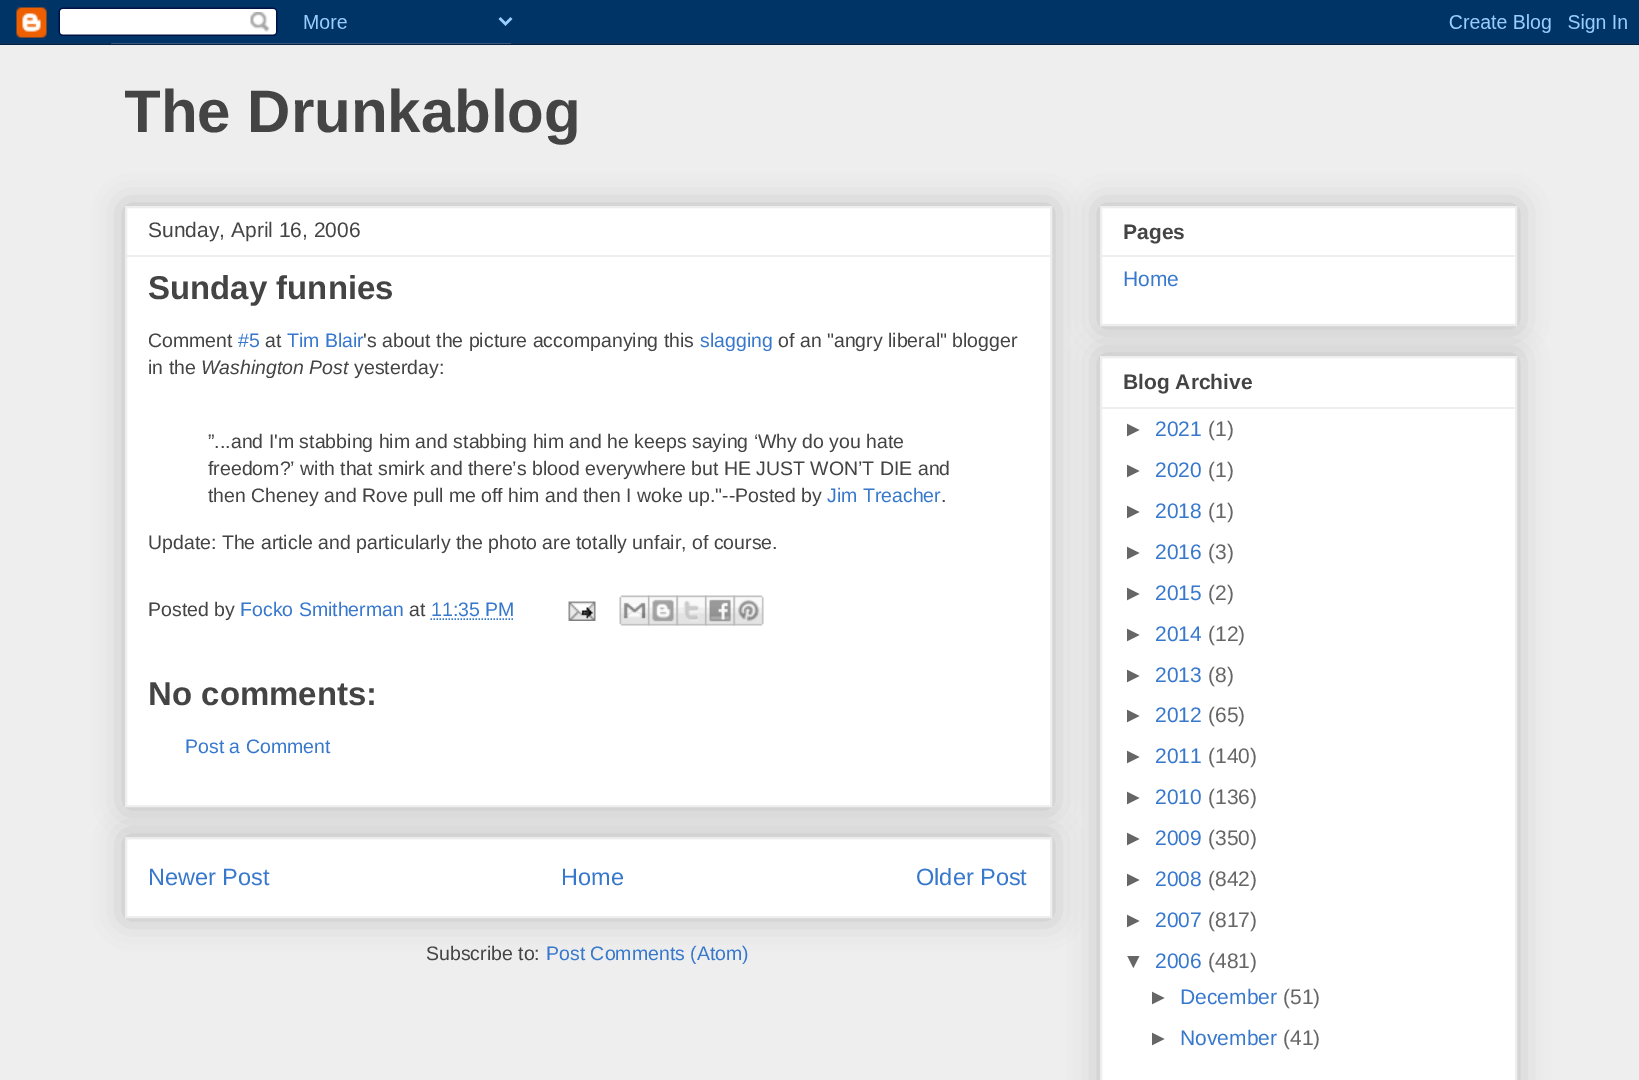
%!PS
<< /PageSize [1639 1080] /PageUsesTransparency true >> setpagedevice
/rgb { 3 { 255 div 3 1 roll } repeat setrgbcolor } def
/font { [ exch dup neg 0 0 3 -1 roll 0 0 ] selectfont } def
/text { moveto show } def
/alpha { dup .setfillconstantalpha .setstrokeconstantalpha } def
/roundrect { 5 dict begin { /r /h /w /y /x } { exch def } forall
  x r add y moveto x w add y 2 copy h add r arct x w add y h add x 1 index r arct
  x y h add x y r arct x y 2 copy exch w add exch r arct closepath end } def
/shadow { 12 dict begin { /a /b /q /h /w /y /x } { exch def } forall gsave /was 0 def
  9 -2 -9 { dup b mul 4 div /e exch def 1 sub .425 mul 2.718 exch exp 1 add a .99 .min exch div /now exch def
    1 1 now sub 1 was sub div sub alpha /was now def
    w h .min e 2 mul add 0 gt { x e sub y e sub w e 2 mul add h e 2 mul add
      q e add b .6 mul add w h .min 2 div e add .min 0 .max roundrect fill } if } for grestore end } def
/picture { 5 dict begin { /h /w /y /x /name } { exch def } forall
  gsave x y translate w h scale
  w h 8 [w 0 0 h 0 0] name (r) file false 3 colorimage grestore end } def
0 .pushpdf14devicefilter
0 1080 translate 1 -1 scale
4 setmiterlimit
238 238 238 rgb
0 0 1639 1080 rectfill
(img_01.rgb) 0 0 1639 45 picture
0 0 0 rgb
125 837 927 81 0 15 0.2 shadow
255 255 255 rgb
126 838 moveto 925 0 rlineto 0 79 rlineto -925 0 rlineto closepath gsave fill grestore
238 238 238 rgb
2 setlinewidth
stroke
0 0 0 rgb
125 206 927 601 0 15 0.2 shadow
255 255 255 rgb
126 207 moveto 925 0 rlineto 0 599 rlineto -925 0 rlineto closepath gsave fill grestore
238 238 238 rgb
stroke
126 255 924 2 rectfill
55 120 205 rgb
1.5 setlinewidth
[1.5 1.5] 0 setdash
430.5 619 moveto 83.5 0 rlineto stroke
(img_02.rgb) 568 601 28 20 picture
(img_03.rgb) 619 595 31 31 picture
(img_04.rgb) 648 595 30 31 picture
(img_05.rgb) 676 595 31 31 picture
(img_06.rgb) 705 595 30 31 picture
(img_07.rgb) 733 595 31 31 picture
0 0 0 rgb
1100 206 417 120 0 15 0.2 shadow
255 255 255 rgb
1101 207 moveto 415 0 rlineto 0 118 rlineto -415 0 rlineto closepath gsave fill grestore
238 238 238 rgb
2 setlinewidth
[] 0 setdash
stroke
1101 255 414 2 rectfill
0 0 0 rgb
1100 356 417 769 0 15 0.2 shadow
255 255 255 rgb
1101 357 moveto 415 0 rlineto 0 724 rlineto -415 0 rlineto closepath gsave fill grestore
238 238 238 rgb
stroke
1101 407 414 2 rectfill
gsave
125 45 1392 116 rectclip
/LiberationSans-Bold 60 font
68 68 68 rgb
(The Drunkablog) 124 132 text
grestore
/LiberationSans-Regular 21 font
68 68 68 rgb
(Sunday, April 16, 2006) 148 237 text
/LiberationSans-Bold 33 font
(Sunday funnies) 148 299 text
/LiberationSans-Regular 19.5 font
(Comment) 148 347 text
55 120 205 rgb
(#5) 238 347 text
68 68 68 rgb
(at) 265 347 text
55 120 205 rgb
(Tim Blair) 287 347 text
68 68 68 rgb
('s about the picture accompanying this) 363 347 text
55 120 205 rgb
(slagging) 700 347 text
68 68 68 rgb
(of an "angry liberal" blogger) 778 347 text
(in the) 148 374 text
/LiberationSans-Italic 19.5 font
(Washington Post) 201 374 text
/LiberationSans-Regular 19.5 font
(yesterday:) 354 374 text
(”...and I'm stabbing him and stabbing him and he keeps saying ‘Why do you hate) 208 448 text
(freedom?’ with that smirk and there’s blood everywhere but HE JUST WON’T DIE and) 208 475 text
(then Cheney and Rove pull me off him and then I woke up."--Posted by) 208 502 text
55 120 205 rgb
(Jim Treacher) 827 502 text
68 68 68 rgb
(.) 941 502 text
(Update: The article and particularly the photo are totally unfair, of course.) 148 549 text
(Posted by) 148 616 text
55 120 205 rgb
(Focko Smitherman) 240 616 text
68 68 68 rgb
(at) 409 616 text
55 120 205 rgb
(11:35 PM) 431 616 text
/LiberationSans-Bold 33 font
68 68 68 rgb
(No comments:) 148 705 text
/LiberationSans-Regular 19.5 font
55 120 205 rgb
(Post a Comment) 185 753 text
/LiberationSans-Regular 23.5 font
(Newer Post) 148 885 text
(Home) 561 885 text
(Older Post) 916 885 text
/LiberationSans-Regular 19.5 font
68 68 68 rgb
(Subscribe to:) 426 960 text
55 120 205 rgb
(Post Comments \(Atom\)) 546 960 text
/LiberationSans-Bold 21 font
68 68 68 rgb
(Pages) 1123 239 text
/LiberationSans-Regular 21 font
55 120 205 rgb
(Home) 1123 286 text
/LiberationSans-Bold 21 font
68 68 68 rgb
(Blog Archive) 1123 389 text
/LiberationSans-Regular 21 font
102 102 102 rgb
(►) 1123 436 text
55 120 205 rgb
(2021) 1155 436 text
102 102 102 rgb
(\(1\)) 1208 436 text
(►) 1123 477 text
55 120 205 rgb
(2020) 1155 477 text
102 102 102 rgb
(\(1\)) 1208 477 text
(►) 1123 518 text
55 120 205 rgb
(2018) 1155 518 text
102 102 102 rgb
(\(1\)) 1208 518 text
(►) 1123 559 text
55 120 205 rgb
(2016) 1155 559 text
102 102 102 rgb
(\(3\)) 1208 559 text
(►) 1123 600 text
55 120 205 rgb
(2015) 1155 600 text
102 102 102 rgb
(\(2\)) 1208 600 text
(►) 1123 641 text
55 120 205 rgb
(2014) 1155 641 text
102 102 102 rgb
(\(12\)) 1208 641 text
(►) 1123 682 text
55 120 205 rgb
(2013) 1155 682 text
102 102 102 rgb
(\(8\)) 1208 682 text
(►) 1123 722 text
55 120 205 rgb
(2012) 1155 722 text
102 102 102 rgb
(\(65\)) 1208 722 text
(►) 1123 763 text
55 120 205 rgb
(2011) 1155 763 text
102 102 102 rgb
(\(140\)) 1208 763 text
(►) 1123 804 text
55 120 205 rgb
(2010) 1155 804 text
102 102 102 rgb
(\(136\)) 1208 804 text
(►) 1123 845 text
55 120 205 rgb
(2009) 1155 845 text
102 102 102 rgb
(\(350\)) 1208 845 text
(►) 1123 886 text
55 120 205 rgb
(2008) 1155 886 text
102 102 102 rgb
(\(842\)) 1208 886 text
(►) 1123 927 text
55 120 205 rgb
(2007) 1155 927 text
102 102 102 rgb
(\(817\)) 1208 927 text
(▼) 1123 968 text
55 120 205 rgb
(2006) 1155 968 text
102 102 102 rgb
(\(481\)) 1208 968 text
(►) 1148 1004 text
55 120 205 rgb
(December) 1180 1004 text
102 102 102 rgb
(\(51\)) 1283 1004 text
(►) 1148 1045 text
55 120 205 rgb
(November) 1180 1045 text
102 102 102 rgb
(\(41\)) 1283 1045 text
.poppdf14devicefilter showpage
